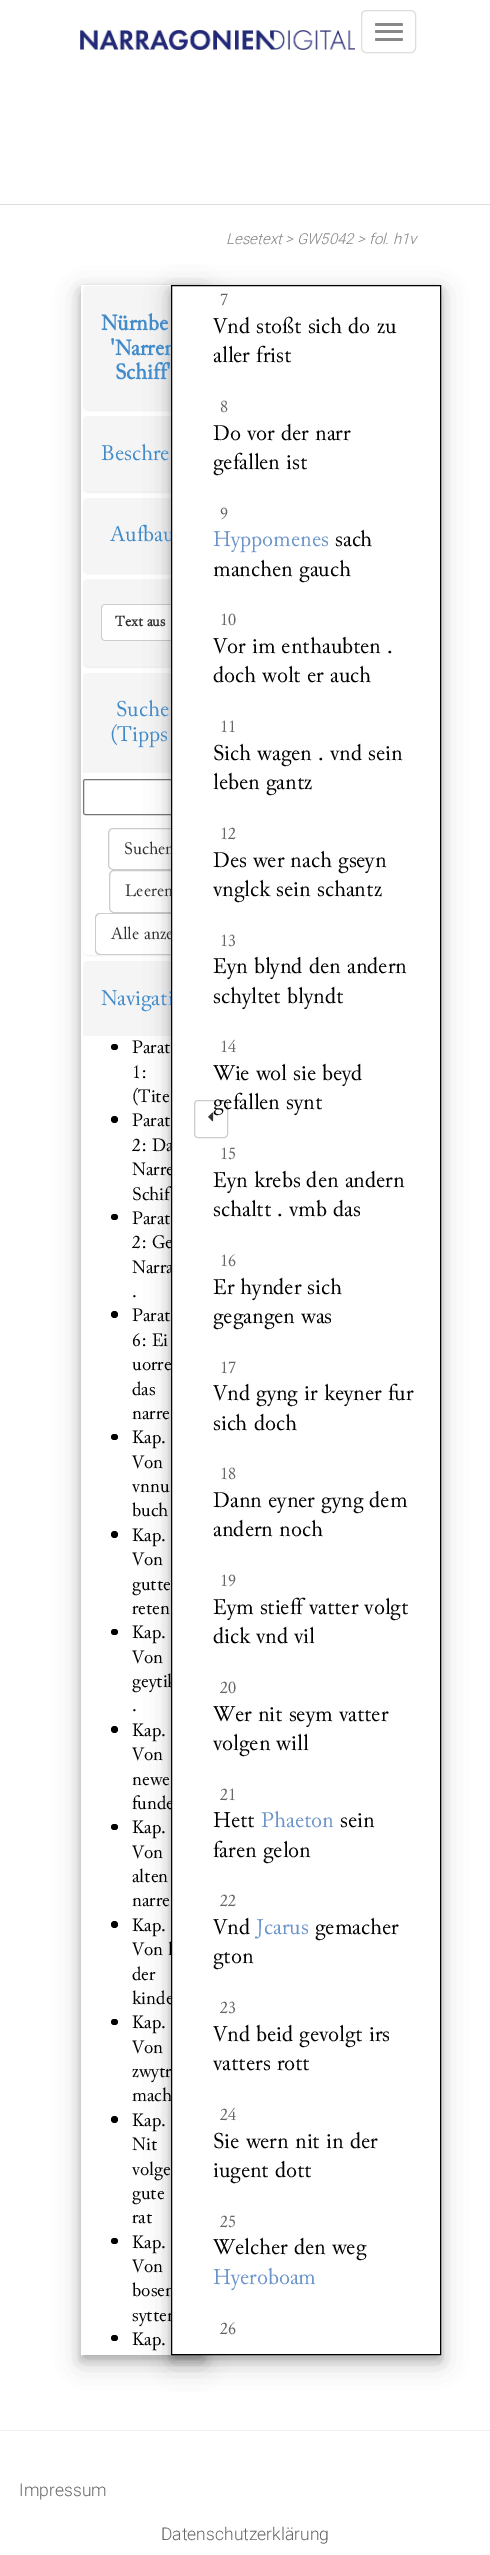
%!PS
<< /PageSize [490 2555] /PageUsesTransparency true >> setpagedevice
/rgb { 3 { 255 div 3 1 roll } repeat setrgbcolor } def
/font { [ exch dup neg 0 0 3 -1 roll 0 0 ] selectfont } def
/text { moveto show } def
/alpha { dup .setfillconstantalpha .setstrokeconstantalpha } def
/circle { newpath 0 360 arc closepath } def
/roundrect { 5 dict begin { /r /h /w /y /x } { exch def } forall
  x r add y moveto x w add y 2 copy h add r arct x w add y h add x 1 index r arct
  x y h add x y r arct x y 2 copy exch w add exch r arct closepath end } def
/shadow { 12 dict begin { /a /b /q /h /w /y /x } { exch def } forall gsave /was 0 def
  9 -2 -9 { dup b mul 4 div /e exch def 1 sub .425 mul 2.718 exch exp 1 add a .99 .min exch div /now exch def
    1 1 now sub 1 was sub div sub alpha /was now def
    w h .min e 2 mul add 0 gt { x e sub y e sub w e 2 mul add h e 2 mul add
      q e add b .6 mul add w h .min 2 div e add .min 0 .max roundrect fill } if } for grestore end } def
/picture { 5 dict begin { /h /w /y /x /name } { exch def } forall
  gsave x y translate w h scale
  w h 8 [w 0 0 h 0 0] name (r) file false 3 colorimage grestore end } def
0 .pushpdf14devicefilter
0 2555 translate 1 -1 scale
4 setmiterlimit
255 255 255 rgb
0 0 490 2555 rectfill
221 221 221 rgb
0 204 490 1 rectfill
(img_01.rgb) 80 30 275 20 picture
361.5 10.5 54 42 4.5 roundrect stroke
136 136 136 rgb
375 23 28 3 1.5 roundrect fill
375 30 28 3 1.5 roundrect fill
375 38 28 3 1.5 roundrect fill
0 0 0 rgb
81 293 123 2070 0 12.5 0.19 shadow
81 290 123 2070 0 5 0.2 shadow
255 255 255 rgb
81 285 90 2070 rectfill
0 0 0 rgb
83 288 120 123 5 0.5 0.05 shadow
245 245 245 rgb
83 286 120 124 5 roundrect fill
0 0 0 rgb
83 418 120 75 5 0.5 0.05 shadow
245 245 245 rgb
83 416 120 75 5 roundrect fill
0 0 0 rgb
83 499 120 75 5 0.5 0.05 shadow
245 245 245 rgb
83 498 120 75 5 roundrect fill
0 0 0 rgb
83 580 120 88 5 0.5 0.05 shadow
245 245 245 rgb
83 579 120 87 5 roundrect fill
255 255 255 rgb
105 604 moveto 98 0 rlineto 0 37 rlineto -98 0 rlineto -2 0 -4 -2 -4 -4 rcurveto 0 -29 rlineto 0 -2 2 -4 4 -4 rcurveto closepath fill
204 204 204 rgb
105 604 moveto -2 0 -4 2 -4 4 rcurveto 0 29 rlineto 0 2 2 4 4 4 rcurveto 98 0 rlineto 0 -1 rlineto -98 0 rlineto -2 0 -3 -1 -3 -3 rcurveto 0 -29 rlineto 0 -2 1 -3 3 -3 rcurveto 98 0 rlineto 0 -1 rlineto closepath fill
0 0 0 rgb
83 674 120 282 5 0.5 0.05 shadow
255 255 255 rgb
83 673 120 282 5 roundrect fill
245 245 245 rgb
88 673 moveto 110 0 rlineto 3 0 5 2 5 5 rcurveto 0 95 rlineto -120 0 rlineto 0 -95 rlineto 0 -3 2 -5 5 -5 rcurveto closepath fill
118 118 118 rgb
83.5 779.5 119 35 2 roundrect stroke
204 204 204 rgb
108.5 828.5 81 41 4.5 roundrect stroke
109.5 870.5 79 42 4.5 roundrect stroke
255 255 255 rgb
100 913 moveto 103 0 rlineto 0 37 rlineto 0 3 -2 5 -5 5 rcurveto -98 0 rlineto -3 0 -5 -2 -5 -5 rcurveto 0 -32 rlineto 0 -3 2 -5 5 -5 rcurveto closepath fill
204 204 204 rgb
100 913 moveto -3 0 -5 2 -5 5 rcurveto 0 32 rlineto 0 3 2 5 5 5 rcurveto 98 0 rlineto 1 0 2 0 3 -1 rcurveto -101 0 rlineto -2 0 -4 -2 -4 -4 rcurveto 0 -32 rlineto 0 -2 2 -4 4 -4 rcurveto 103 0 rlineto 0 -1 rlineto closepath fill
255 255 255 rgb
88 961 moveto 110 0 rlineto 3 0 5 2 5 5 rcurveto 0 1389 rlineto -120 0 rlineto 0 -1389 rlineto 0 -3 2 -5 5 -5 rcurveto closepath fill
245 245 245 rgb
88 961 moveto 110 0 rlineto 3 0 5 2 5 5 rcurveto 0 70 rlineto -120 0 rlineto 0 -70 rlineto 0 -3 2 -5 5 -5 rcurveto closepath fill
0 0 0 rgb
111 1044 7 6 3 roundrect fill
114.5 1119.5 3.5 circle fill
111 1214 7 6 3 roundrect fill
114.5 1314.5 3.5 circle fill
111 1434 7 6 3 roundrect fill
114.5 1534.5 3.5 circle fill
111 1629 7 6 3 roundrect fill
114.5 1729.5 3.5 circle fill
111 1824 7 6 3 roundrect fill
114.5 1924.5 3.5 circle fill
111 2019 7 6 3 roundrect fill
114.5 2119.5 3.5 circle fill
111 2238 7 6 3 roundrect fill
111 2335 7 6 3 roundrect fill
171 293 270 2070 0 12.5 0.19 shadow
171 290 270 2070 0 5 0.2 shadow
238 238 238 rgb
0 2430 490 1 rectfill
/Roboto-LightItalic 15 font
128 128 128 rgb
(Lesetext > GW5042 > fol. h1v) 226 244 text
/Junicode-Bold 22.5 font
66 139 202 rgb
(Nürnbe) 101 330 text
('Narren) 110 355 text
(Schiff') 115 379 text
/Junicode-Regular 22.5 font
(Beschre) 101 460 text
(Aufbau) 110 541 text
/Junicode-Bold 15 font
51 51 51 rgb
(Text aus) 115 626 text
/Junicode-Regular 22.5 font
66 139 202 rgb
(Suche) 116 716 text
(\(Tipps) 110 741 text
/Junicode-Regular 17.5 font
51 51 51 rgb
(Suchen) 124 854 text
(Leeren) 125 896 text
(Alle anze) 111 939 text
/Junicode-Regular 22.5 font
66 139 202 rgb
(Navigati) 101 1005 text
/Junicode-Regular 19 font
0 0 0 rgb
(Parat) 132 1053 text
(1:) 132 1078 text
(\(Tite) 132 1102 text
(Parat) 132 1126 text
(2: Da) 132 1151 text
(Narre) 132 1175 text
(Schif) 132 1200 text
(Parat) 132 1224 text
(2: Ge) 132 1248 text
(Narra) 132 1273 text
(.) 132 1297 text
(Parat) 132 1321 text
(6: Ei) 132 1346 text
(uorre) 132 1370 text
(das) 132 1395 text
(narre) 132 1419 text
(Kap.) 132 1443 text
(Von) 132 1468 text
(vnnu) 132 1492 text
(buch) 132 1516 text
(Kap.) 132 1541 text
(Von) 132 1565 text
(gutte) 132 1590 text
(reten) 132 1614 text
(Kap.) 132 1638 text
(Von) 132 1663 text
(geytik) 132 1687 text
(.) 132 1711 text
(Kap.) 132 1736 text
(Von) 132 1760 text
(newe) 132 1785 text
(funde) 132 1809 text
(Kap.) 132 1833 text
(Von) 132 1858 text
(alten) 132 1882 text
(narre) 132 1906 text
(Kap.) 132 1931 text
(Von l) 132 1955 text
(der) 132 1980 text
(kinde) 132 2004 text
(Kap.) 132 2028 text
(Von) 132 2053 text
(zwytr) 132 2077 text
(mach) 132 2101 text
(Kap.) 132 2126 text
(Nit) 132 2150 text
(volge) 132 2175 text
(gute) 132 2199 text
(rat) 132 2223 text
(Kap.) 132 2248 text
(Von) 132 2272 text
(bosen) 132 2296 text
(sytten) 132 2321 text
(Kap.) 132 2345 text
255 255 255 rgb
171.5 285.5 moveto 269 0 rlineto 0 2069 rlineto -269 0 rlineto closepath gsave fill grestore
0 0 0 rgb
stroke
204 204 204 rgb
194.5 1100.5 33 37 3.5 roundrect stroke
(img_02.rgb) 208 1112 6 10 picture
/Junicode-Regular 17.5 font
101 101 101 rgb
(7) 220 305 text
/Junicode-Regular 22.5 font
0 0 0 rgb
(Vnd stoßt sich do zu) 213 333 text
(aller frist) 213 362 text
/Junicode-Regular 17.5 font
101 101 101 rgb
(8) 220 412 text
/Junicode-Regular 22.5 font
0 0 0 rgb
(Do vor der narr) 213 440 text
(gefallen ist) 213 469 text
/Junicode-Regular 17.5 font
101 101 101 rgb
(9) 220 519 text
/Junicode-Regular 22.5 font
107 148 203 rgb
(Hyppomenes) 213 546 text
0 0 0 rgb
(sach) 335 546 text
(manchen gauch) 213 576 text
/Junicode-Regular 17.5 font
101 101 101 rgb
(10) 220 625 text
/Junicode-Regular 22.5 font
0 0 0 rgb
(Vor im enthaubten .) 213 653 text
(doch wolt er auch) 213 682 text
/Junicode-Regular 17.5 font
101 101 101 rgb
(11) 220 732 text
/Junicode-Regular 22.5 font
0 0 0 rgb
(Sich wagen . vnd sein) 213 760 text
(leben gantz) 213 789 text
/Junicode-Regular 17.5 font
101 101 101 rgb
(12) 220 839 text
/Junicode-Regular 22.5 font
0 0 0 rgb
(Des wer nach gseyn) 213 867 text
(vnglck sein schantz) 213 896 text
/Junicode-Regular 17.5 font
101 101 101 rgb
(13) 220 946 text
/Junicode-Regular 22.5 font
0 0 0 rgb
(Eyn blynd den andern) 213 973 text
(schyltet blyndt) 213 1003 text
/Junicode-Regular 17.5 font
101 101 101 rgb
(14) 220 1052 text
/Junicode-Regular 22.5 font
0 0 0 rgb
(Wie wol sie beyd) 213 1080 text
(gefallen synt) 213 1109 text
/Junicode-Regular 17.5 font
101 101 101 rgb
(15) 220 1159 text
/Junicode-Regular 22.5 font
0 0 0 rgb
(Eyn krebs den andern) 213 1187 text
(schaltt . vmb das) 213 1216 text
/Junicode-Regular 17.5 font
101 101 101 rgb
(16) 220 1266 text
/Junicode-Regular 22.5 font
0 0 0 rgb
(Er hynder sich) 213 1294 text
(gegangen was) 213 1323 text
/Junicode-Regular 17.5 font
101 101 101 rgb
(17) 220 1373 text
/Junicode-Regular 22.5 font
0 0 0 rgb
(Vnd gyng ir keyner fur) 213 1400 text
(sich doch) 213 1430 text
/Junicode-Regular 17.5 font
101 101 101 rgb
(18) 220 1479 text
/Junicode-Regular 22.5 font
0 0 0 rgb
(Dann eyner gyng dem) 213 1507 text
(andern noch) 213 1536 text
/Junicode-Regular 17.5 font
101 101 101 rgb
(19) 220 1586 text
/Junicode-Regular 22.5 font
0 0 0 rgb
(Eym stieff vatter volgt) 213 1614 text
(dick vnd vil) 213 1643 text
/Junicode-Regular 17.5 font
101 101 101 rgb
(20) 220 1693 text
/Junicode-Regular 22.5 font
0 0 0 rgb
(Wer nit seym vatter) 213 1721 text
(volgen will) 213 1750 text
/Junicode-Regular 17.5 font
101 101 101 rgb
(21) 220 1800 text
/Junicode-Regular 22.5 font
0 0 0 rgb
(Hett) 213 1827 text
107 148 203 rgb
(Phaeton) 261 1827 text
0 0 0 rgb
(sein) 340 1827 text
(faren gelon) 213 1857 text
/Junicode-Regular 17.5 font
101 101 101 rgb
(22) 220 1906 text
/Junicode-Regular 22.5 font
0 0 0 rgb
(Vnd) 213 1934 text
107 148 203 rgb
(Jcarus) 256 1934 text
0 0 0 rgb
(gemacher) 315 1934 text
(gton) 213 1963 text
/Junicode-Regular 17.5 font
101 101 101 rgb
(23) 220 2013 text
/Junicode-Regular 22.5 font
0 0 0 rgb
(Vnd beid gevolgt irs) 213 2041 text
(vatters rott) 213 2070 text
/Junicode-Regular 17.5 font
101 101 101 rgb
(24) 220 2120 text
/Junicode-Regular 22.5 font
0 0 0 rgb
(Sie wern nit in der) 213 2148 text
(iugent dott) 213 2177 text
/Junicode-Regular 17.5 font
101 101 101 rgb
(25) 220 2227 text
/Junicode-Regular 22.5 font
0 0 0 rgb
(Welcher den weg) 213 2254 text
107 148 203 rgb
(Hyeroboam) 213 2284 text
/Junicode-Regular 17.5 font
101 101 101 rgb
(26) 220 2334 text
/Roboto-Light 17.5 font
(Impressum) 19 2496 text
(Datenschutzerklärung) 161 2540 text
.poppdf14devicefilter showpage
